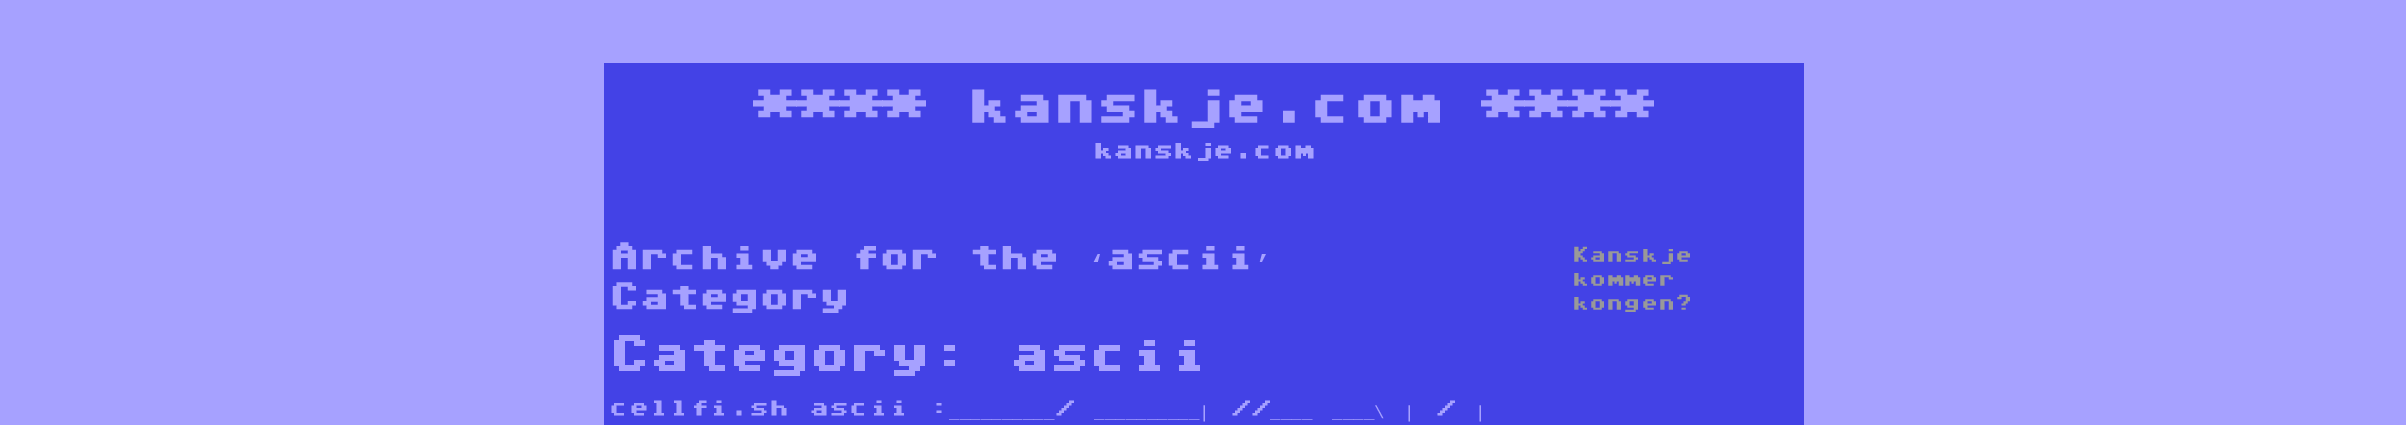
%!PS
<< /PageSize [2406 425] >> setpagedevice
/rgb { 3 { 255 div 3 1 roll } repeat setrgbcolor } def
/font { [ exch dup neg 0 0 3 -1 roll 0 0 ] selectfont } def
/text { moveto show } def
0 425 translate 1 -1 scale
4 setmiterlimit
166 161 255 rgb
0 0 2406 425 rectfill
67 66 230 rgb
604 63 1200 362 rectfill
/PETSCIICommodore-Bold 37.5 font
166 161 255 rgb
(**** kanskje.com ****) 753 128 text
/PETSCIICommodore-Bold 17.5 font
(kanskje.com) 1093 161 text
/PETSCIICommodore-Bold 26.25 font
(Archive for the) 609 273 text
/LiberationMono-Bold 26.25 font
(‘) 1089 273 text
/PETSCIICommodore-Bold 26.25 font
(ascii) 1105 273 text
/LiberationMono-Bold 26.25 font
(’) 1255 273 text
/PETSCIICommodore-Bold 26.25 font
(Category) 609 313 text
/PETSCIICommodore-Bold 35 font
(Category: ascii) 609 376 text
/PETSCIICommodore-Regular 17.5 font
(cellfi.sh ascii :) 609 418 text
/LiberationMono-Regular 17.5 font
(__________) 949 418 text
/PETSCIICommodore-Regular 17.5 font
(/) 1054 418 text
/LiberationMono-Regular 17.5 font
(__________|) 1094 418 text
/PETSCIICommodore-Regular 17.5 font
(//) 1230 418 text
/LiberationMono-Regular 17.5 font
(____) 1270 418 text
(____\\) 1332 418 text
(|) 1404 418 text
/PETSCIICommodore-Regular 17.5 font
(/) 1435 418 text
/LiberationMono-Regular 17.5 font
(|) 1475 418 text
/PETSCIICommodore-Regular 15 font
153 153 153 rgb
(Kanskje) 1572 264 text
(kommer) 1572 288 text
(kongen?) 1572 312 text
showpage
